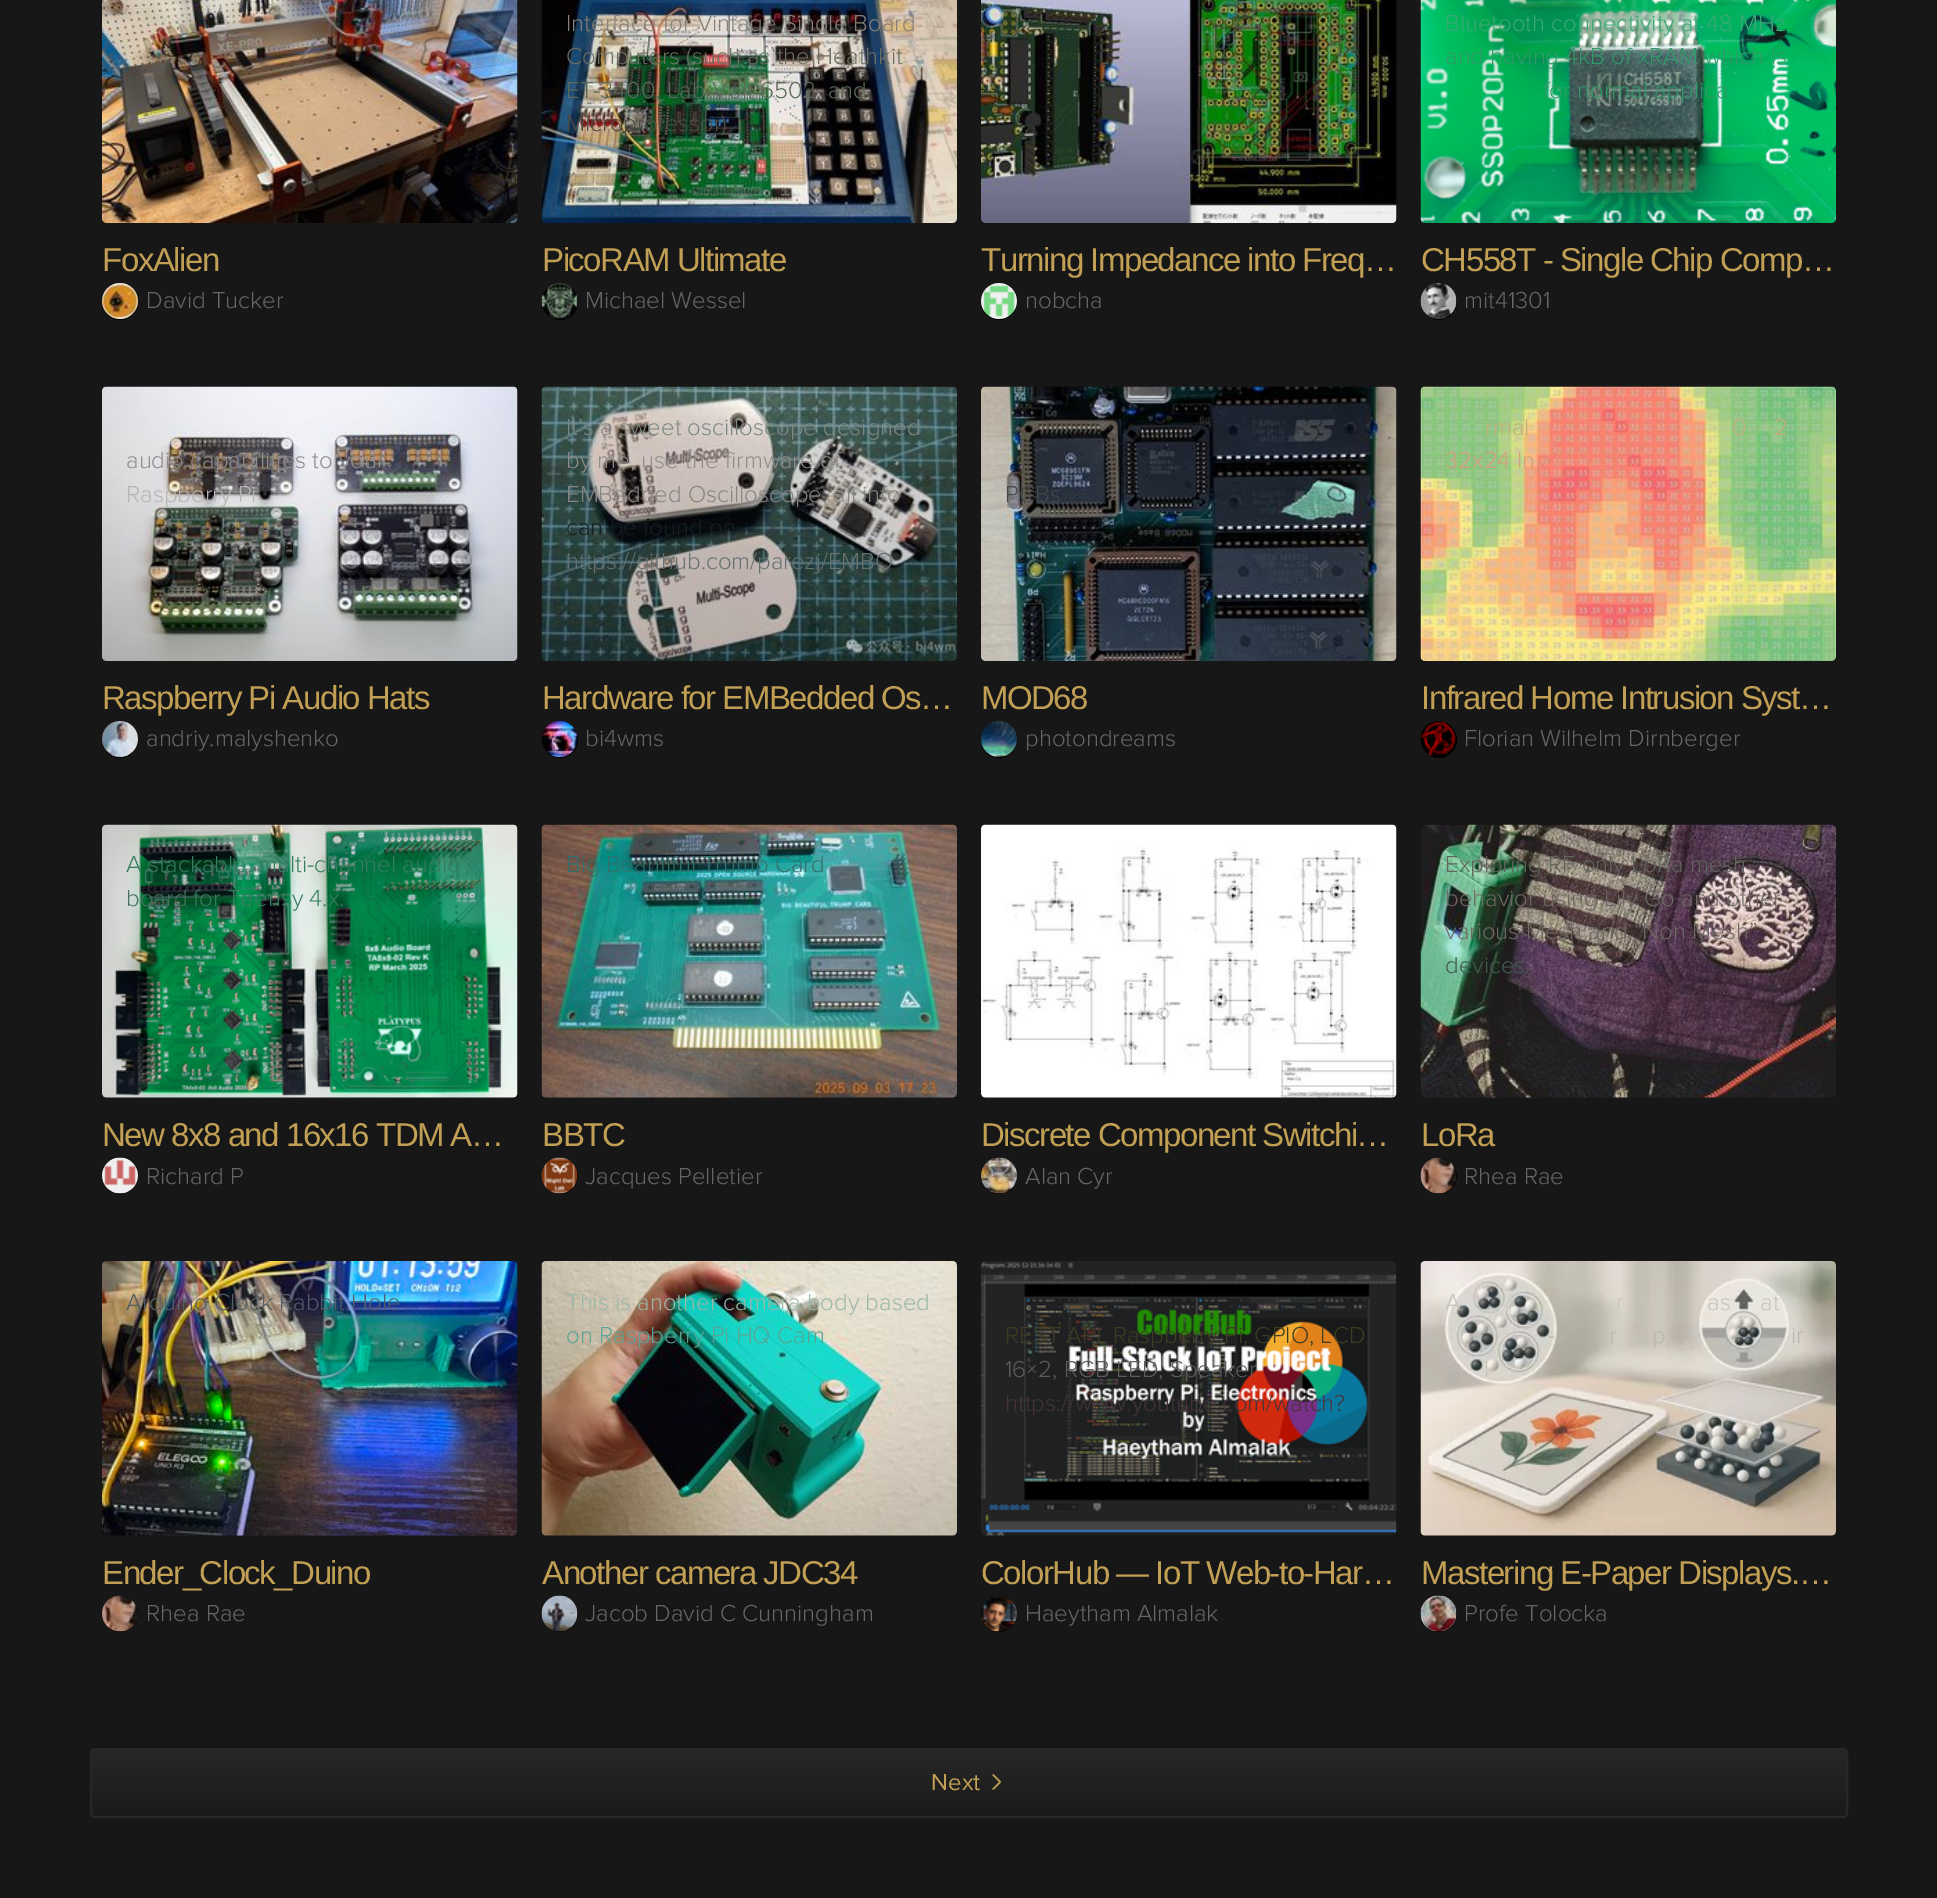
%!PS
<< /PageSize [1937 1898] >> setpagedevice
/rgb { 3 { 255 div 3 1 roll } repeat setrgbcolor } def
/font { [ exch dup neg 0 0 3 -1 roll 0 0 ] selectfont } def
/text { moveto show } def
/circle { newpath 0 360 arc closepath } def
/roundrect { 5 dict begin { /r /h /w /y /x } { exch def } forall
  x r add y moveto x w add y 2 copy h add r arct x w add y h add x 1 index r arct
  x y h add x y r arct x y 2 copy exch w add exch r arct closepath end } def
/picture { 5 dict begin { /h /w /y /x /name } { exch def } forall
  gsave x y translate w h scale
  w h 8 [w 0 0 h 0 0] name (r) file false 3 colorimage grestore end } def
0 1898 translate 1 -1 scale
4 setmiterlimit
23 23 23 rgb
0 0 1937 1898 rectfill
(img_01.rgb) 102 0 416 223 picture
0 0 0 rgb
120 302 18 circle fill
(img_02.rgb) 102 283 36 36 picture
(img_03.rgb) 541 0 416 223 picture
560 302 18 circle fill
(img_04.rgb) 541 283 37 36 picture
(img_05.rgb) 981 0 416 223 picture
999 302 18 circle fill
(img_06.rgb) 981 283 36 36 picture
(img_07.rgb) 1420 0 416 223 picture
1439 302 18 circle fill
(img_08.rgb) 1420 283 37 36 picture
(img_09.rgb) 102 386 416 275 picture
120 740 18 circle fill
(img_10.rgb) 102 721 36 36 picture
(img_11.rgb) 541 386 416 275 picture
560 740 18 circle fill
(img_12.rgb) 541 721 37 36 picture
(img_13.rgb) 981 386 416 275 picture
999 740 18 circle fill
(img_14.rgb) 981 721 36 36 picture
(img_15.rgb) 1420 386 416 275 picture
1439 740 18 circle fill
(img_16.rgb) 1420 721 36 35 picture
(img_17.rgb) 102 824 416 274 picture
120 1176 18 circle fill
(img_18.rgb) 102 1157 36 37 picture
(img_19.rgb) 541 824 416 274 picture
560 1176 18 circle fill
(img_20.rgb) 541 1157 37 37 picture
(img_21.rgb) 981 824 416 274 picture
999 1176 18 circle fill
(img_22.rgb) 981 1157 36 37 picture
(img_23.rgb) 1420 824 416 274 picture
1439 1176 18 circle fill
(img_24.rgb) 1420 1157 37 37 picture
(img_25.rgb) 102 1261 416 275 picture
120 1614 18 circle fill
(img_26.rgb) 102 1595 36 37 picture
(img_27.rgb) 541 1261 416 275 picture
560 1614 18 circle fill
(img_28.rgb) 541 1595 37 37 picture
(img_29.rgb) 981 1261 416 275 picture
999 1614 18 circle fill
(img_30.rgb) 981 1596 36 36 picture
(img_31.rgb) 1420 1261 416 275 picture
1439 1614 18 circle fill
(img_32.rgb) 1420 1595 37 37 picture
gsave
90 1748 1758 70 5 roundrect clip newpath
gsave 90 1749 moveto 1758 0 rlineto 0 68 rlineto -1758 0 rlineto closepath clip newpath
<< /ShadingType 2 /ColorSpace /DeviceRGB /Coords [969 1749 969 1817] /Extend [true true] /Function << /FunctionType 2 /Domain [0 1] /C0 [0.153 0.153 0.153] /C1 [0.102 0.102 0.102] /N 1 >> >> shfill grestore
grestore
39 39 39 rgb
2 setlinewidth
91 1749 1756 68 4 roundrect stroke
(img_33.rgb) 992 1774 9 16 picture
/LiberationSans-Regular 33 font
193 159 84 rgb
102 271 moveto -1.5 0 (FoxAlien) ashow
/ProximaNova-Light 24 font
103 103 103 rgb
(David Tucker) 146 308 text
135 127 121 rgb
(Interface for Vintage Single Board) 566 31 text
107 111 102 rgb
(Computers \(such as the Heathkit) 566 64 text
90 106 91 rgb
(ET-3400, Lab-Volt 6502, and) 566 98 text
78 77 69 rgb
(Microprofessor\)) 566 131 text
/LiberationSans-Regular 33 font
193 159 84 rgb
542 271 moveto -1.5 0 (PicoRAM Ultimate) ashow
/ProximaNova-Light 24 font
103 103 103 rgb
(Michael Wessel) 585 308 text
/LiberationSans-Regular 33 font
193 159 84 rgb
981 271 moveto -1.5 0 (Turning Impedance into Freq…) ashow
/ProximaNova-Light 24 font
103 103 103 rgb
(nobcha) 1025 308 text
58 169 117 rgb
(Bluetooth connectivity at 48 MHz) 1445 31 text
49 153 106 rgb
(and having 4kB of xRAM which is) 1445 64 text
(for normal applica) 1543 98 text
/LiberationSans-Regular 33 font
193 159 84 rgb
1421 271 moveto -1.5 0 (CH558T - Single Chip Comp…) ashow
/ProximaNova-Light 24 font
103 103 103 rgb
(mit41301) 1464 308 text
145 139 138 rgb
(audio capabilities to your) 126 468 text
183 180 180 rgb
(Raspberry Pi) 126 502 text
/LiberationSans-Regular 33 font
193 159 84 rgb
102 709 moveto -1.5 0 (Raspberry Pi Audio Hats) ashow
/ProximaNova-Light 24 font
103 103 103 rgb
(andriy.malyshenko) 146 746 text
125 136 132 rgb
(It’s a sweet oscilloscope designed) 566 435 text
145 139 138 rgb
(by me, use the firmware of) 566 468 text
134 133 130 rgb
(EMBedded Oscilloscope, all info) 566 502 text
21 31 34 rgb
(can be found on) 566 535 text
103 114 112 rgb
(https://github.com/parezj/EMBO) 566 569 text
/LiberationSans-Regular 33 font
193 159 84 rgb
542 709 moveto -1.5 0 (Hardware for EMBedded Os…) ashow
/ProximaNova-Light 24 font
103 103 103 rgb
(bi4wms) 585 746 text
68 71 76 rgb
(PCBs) 1005 502 text
/LiberationSans-Regular 33 font
193 159 84 rgb
981 709 moveto -1.5 0 (MOD68) ashow
/ProximaNova-Light 24 font
103 103 103 rgb
(photondreams) 1025 746 text
200 173 127 rgb
(rmal) 1485 435 text
(0) 1732 435 text
(2) 1774 435 text
216 158 124 rgb
(32x24 In) 1445 468 text
/LiberationSans-Regular 33 font
193 159 84 rgb
1421 709 moveto -1.5 0 (Infrared Home Intrusion Syst…) ashow
/ProximaNova-Light 24 font
103 103 103 rgb
(Florian Wilhelm Dirnberger) 1464 746 text
56 124 95 rgb
(A stackable, multi-channel audio) 126 872 text
72 114 96 rgb
(board) 126 906 text
56 124 95 rgb
(for Teensy 4.x.) 193 906 text
/LiberationSans-Regular 33 font
193 159 84 rgb
102 1146 moveto -1.5 0 (New 8x8 and 16x16 TDM A…) ashow
/ProximaNova-Light 24 font
103 103 103 rgb
(Richard P) 146 1184 text
49 114 110 rgb
(Big Beautiful Trump Card) 566 872 text
/LiberationSans-Regular 33 font
193 159 84 rgb
542 1146 moveto -1.5 0 (BBTC) ashow
/ProximaNova-Light 24 font
103 103 103 rgb
(Jacques Pelletier) 585 1184 text
/LiberationSans-Regular 33 font
193 159 84 rgb
981 1146 moveto -1.5 0 (Discrete Component Switchi…) ashow
/ProximaNova-Light 24 font
103 103 103 rgb
(Alan Cyr) 1025 1184 text
97 101 93 rgb
(Exploring RF only LoRa mesh) 1445 872 text
110 105 100 rgb
(behavior using Lily Go and other) 1445 906 text
(various Mesh and “Non Mesh”) 1445 939 text
65 91 79 rgb
(devices.) 1445 973 text
/LiberationSans-Regular 33 font
193 159 84 rgb
1421 1146 moveto -1.5 0 (LoRa) ashow
/ProximaNova-Light 24 font
103 103 103 rgb
(Rhea Rae) 1464 1184 text
84 94 104 rgb
(Arduino Clock Rabbit Hole) 126 1310 text
/LiberationSans-Regular 33 font
193 159 84 rgb
102 1584 moveto -1.5 0 (Ender_Clock_Duino) ashow
/ProximaNova-Light 24 font
103 103 103 rgb
(Rhea Rae) 146 1621 text
154 183 168 rgb
(This is another camera body based) 566 1310 text
88 165 149 rgb
(on Raspberry Pi HQ Cam) 566 1343 text
/LiberationSans-Regular 33 font
193 159 84 rgb
542 1584 moveto -1.5 0 (Another camera JDC34) ashow
/ProximaNova-Light 24 font
103 103 103 rgb
(Jacob David C Cunningham) 585 1621 text
62 60 33 rgb
(REST API, Raspberry Pi, GPIO, LCD) 1005 1343 text
92 92 92 rgb
(16×2, RGB LED, Speaker) 1005 1377 text
70 52 58 rgb
(https://www.youtube.com/watch?) 1005 1411 text
/LiberationSans-Regular 33 font
193 159 84 rgb
981 1584 moveto -1.5 0 (ColorHub — IoT Web-to-Har…) ashow
/ProximaNova-Light 24 font
103 103 103 rgb
(Haeytham Almalak) 1025 1621 text
198 195 187 rgb
(A) 1445 1310 text
(r) 1616 1310 text
(as) 1707 1310 text
(at) 1760 1310 text
185 182 174 rgb
(-) 1548 1343 text
(r) 1609 1343 text
(p) 1652 1343 text
(ir) 1791 1343 text
198 195 187 rgb
(l) 1484 1377 text
/LiberationSans-Regular 33 font
193 159 84 rgb
1421 1584 moveto -1.5 0 (Mastering E-Paper Displays.…) ashow
/ProximaNova-Light 24 font
103 103 103 rgb
(Profe Tolocka) 1464 1621 text
/ProximaNova-Regular 24 font
193 159 84 rgb
(Next) 931 1790 text
showpage
